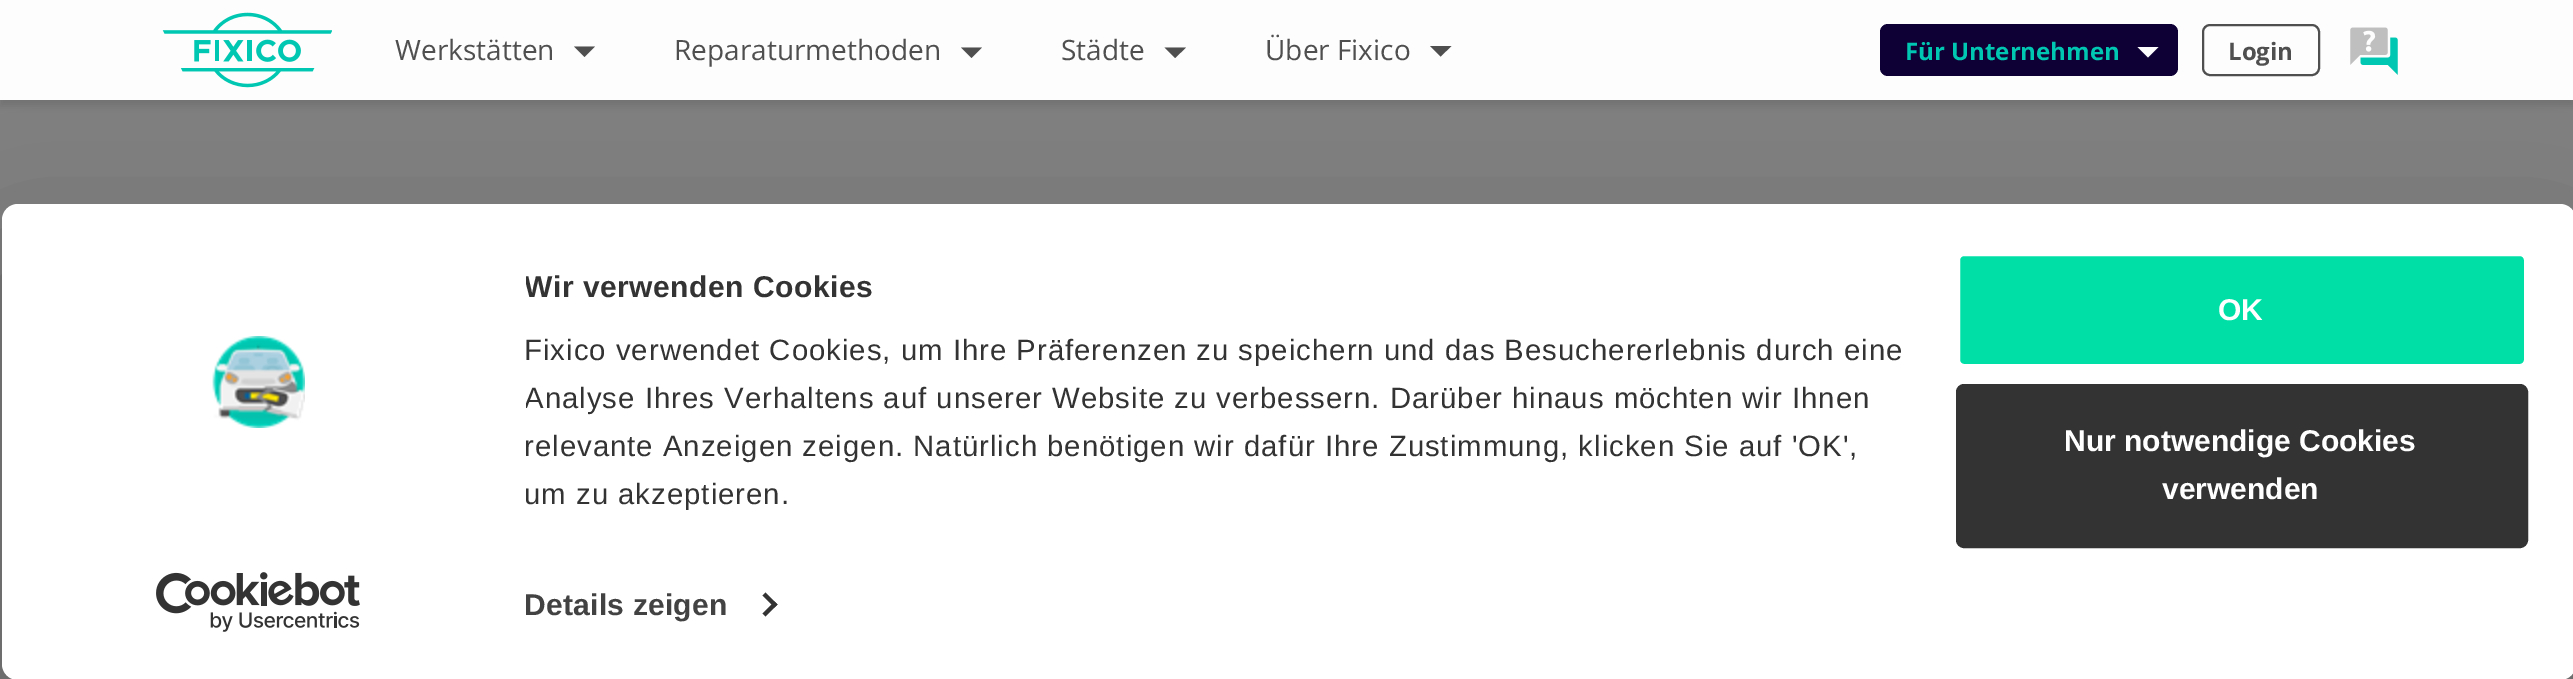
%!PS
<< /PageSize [2573 679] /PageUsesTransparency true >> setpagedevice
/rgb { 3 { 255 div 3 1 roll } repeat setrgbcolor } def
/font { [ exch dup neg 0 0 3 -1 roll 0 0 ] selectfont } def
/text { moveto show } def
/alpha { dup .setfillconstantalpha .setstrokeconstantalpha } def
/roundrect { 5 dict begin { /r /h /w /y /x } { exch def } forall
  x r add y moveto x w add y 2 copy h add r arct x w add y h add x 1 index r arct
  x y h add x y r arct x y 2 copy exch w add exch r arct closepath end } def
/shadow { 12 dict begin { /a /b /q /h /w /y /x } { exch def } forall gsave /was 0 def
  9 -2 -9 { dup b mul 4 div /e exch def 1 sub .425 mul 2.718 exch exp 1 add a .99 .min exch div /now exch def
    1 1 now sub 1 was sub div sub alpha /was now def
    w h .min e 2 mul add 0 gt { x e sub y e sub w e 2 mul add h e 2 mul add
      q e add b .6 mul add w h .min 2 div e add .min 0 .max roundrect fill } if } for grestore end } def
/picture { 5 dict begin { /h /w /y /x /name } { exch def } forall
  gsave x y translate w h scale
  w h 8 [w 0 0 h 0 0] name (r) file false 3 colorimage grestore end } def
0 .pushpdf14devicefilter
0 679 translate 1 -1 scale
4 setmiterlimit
128 128 128 rgb
0 0 2573 679 rectfill
79 79 79 rgb
0 6 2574 100 0 4 0.3 shadow
253 253 253 rgb
0 0 2573 100 rectfill
(img_01.rgb) 162 12 170 76 picture
79 79 79 rgb
584.5 57 moveto -10.5 -10.5 rlineto 21 0 rlineto closepath fill
971.5 58 moveto -10.5 -10.5 rlineto 21 0 rlineto closepath fill
1175 58 moveto -10.5 -10.5 rlineto 21.5 0 rlineto closepath fill
1440.5 56.5 moveto -10.5 -10.5 rlineto 21.5 0 rlineto closepath fill
14 0 53 rgb
1880 24 298 52 8 roundrect fill
253 253 253 rgb
2148 57.5 moveto -10.5 -10.5 rlineto 21 0 rlineto closepath fill
79 79 79 rgb
2 setlinewidth
2203 25 116 50 7 roundrect stroke
(img_02.rgb) 2350 27 48 48 picture
0 0 0 rgb
2 264 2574 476 16 70 0.3 shadow
255 255 255 rgb
2 204 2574 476 16 roundrect fill
(img_03.rgb) 212 336 93 92 picture
(img_04.rgb) 156 572 204 60 picture
51 51 51 rgb
765.5 592.5 moveto 12 12 rlineto -3 3 rlineto -12 -12 rlineto closepath fill
774.5 601.5 moveto 3 3 rlineto -12 12 rlineto -3 -3 rlineto closepath fill
0 223 166 rgb
1958 254 568 112 6 roundrect gsave fill grestore
255 255 255 rgb
4 setlinewidth
stroke
51 51 51 rgb
1958 386 568 160 6 roundrect gsave fill grestore
stroke
/OpenSans-Regular 28 font
79 79 79 rgb
(Werkstätten) 395 60 text
(Reparaturmethoden) 674 60 text
(Städte) 1061 60 text
(Über Fixico) 1265 60 text
/OpenSans-Bold 24 font
0 199 177 rgb
(Für Unternehmen) 1905 60 text
79 79 79 rgb
(Login) 2228 60 text
gsave
526 264 1418 254 rectclip
/LiberationSans-Bold 30 font
51 51 51 rgb
524 297 moveto 0.5 0 (Wir verwenden Cookies) ashow
grestore
/LiberationSans-Regular 29.35 font
51 51 51 rgb
524 360 moveto 1 0 (Fixico verwendet Cookies, um Ihre Präferenzen zu speichern und das Besuchererlebnis durch eine) ashow
gsave
526 264 1418 254 rectclip
524 408 moveto 1 0 (Analyse Ihres Verhaltens auf unserer Website zu verbessern. Darüber hinaus möchten wir Ihnen) ashow
grestore
524 456 moveto 1 0 (relevante Anzeigen zeigen. Natürlich benötigen wir dafür Ihre Zustimmung, klicken Sie auf 'OK',) ashow
524 504 moveto 1 0 (um zu akzeptieren.) ashow
/LiberationSans-Bold 30 font
66 66 66 rgb
524 615 moveto 0.25 0 (Details zeigen) ashow
255 255 255 rgb
(OK) 2218 320 text
(Nur notwendige Cookies) 2064 451 text
(verwenden) 2162 499 text
.poppdf14devicefilter showpage
